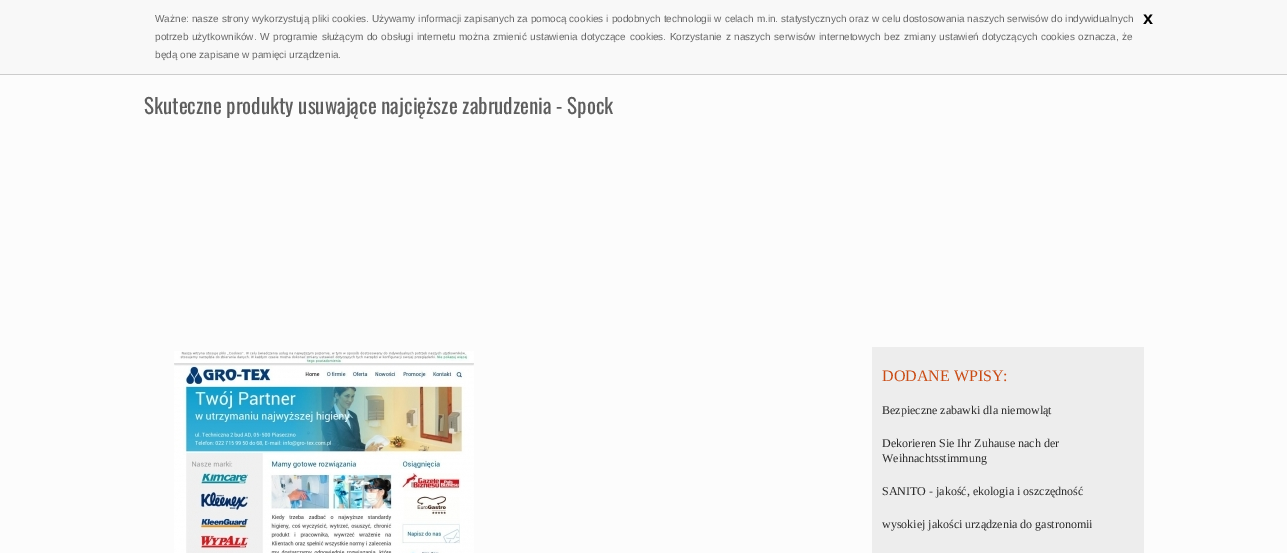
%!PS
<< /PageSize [1287 553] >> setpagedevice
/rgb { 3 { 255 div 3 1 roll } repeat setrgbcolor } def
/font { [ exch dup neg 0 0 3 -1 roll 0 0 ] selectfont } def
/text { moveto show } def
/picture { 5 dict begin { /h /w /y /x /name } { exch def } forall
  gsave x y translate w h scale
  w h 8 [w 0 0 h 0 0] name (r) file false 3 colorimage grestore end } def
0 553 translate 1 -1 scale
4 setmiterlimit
252 252 252 rgb
0 0 1287 553 rectfill
248 248 248 rgb
0 0 1287 74 rectfill
204 204 204 rgb
0 74 1287 1 rectfill
(img_01.rgb) 174 351 300 202 picture
237 237 237 rgb
872 347 272 206 rectfill
/LiberationSans-Regular 10 font
102 102 102 rgb
155 22 moveto 0.25 0 32 (Ważne: nasze strony wykorzystują pliki cookies. Używamy informacji zapisanych za pomocą cookies i podobnych technologii w celach m.in. statystycznych oraz w celu dostosowania naszych serwisów do indywidualnych) widthshow
/LiberationSans-Bold 18 font
0 0 0 rgb
(x) 1143 24 text
/LiberationSans-Regular 10 font
102 102 102 rgb
155 40 moveto 0.8 0 32 (potrzeb użytkowników. W programie służącym do obsługi internetu można zmienić ustawienia dotyczące cookies. Korzystanie z naszych serwisów internetowych bez zmiany ustawień dotyczących cookies oznacza, że) widthshow
(będą one zapisane w pamięci urządzenia.) 155 58 text
/Oswald-Regular 21 font
94 94 94 rgb
(Skuteczne produkty usuwające najcięższe zabrudzenia - Spock) 144 114 text
/LiberationSerif-Regular 16 font
201 75 20 rgb
(DODANE WPISY:) 882 381 text
/LiberationSerif-Regular 12 font
43 43 43 rgb
(Bezpieczne zabawki dla niemowląt) 882 414 text
(Dekorieren Sie Ihr Zuhause nach der) 882 447 text
(Weihnachtsstimmung) 882 462 text
(SANITO - jakość, ekologia i oszczędność) 882 495 text
(wysokiej jakości urządzenia do gastronomii) 882 528 text
showpage
